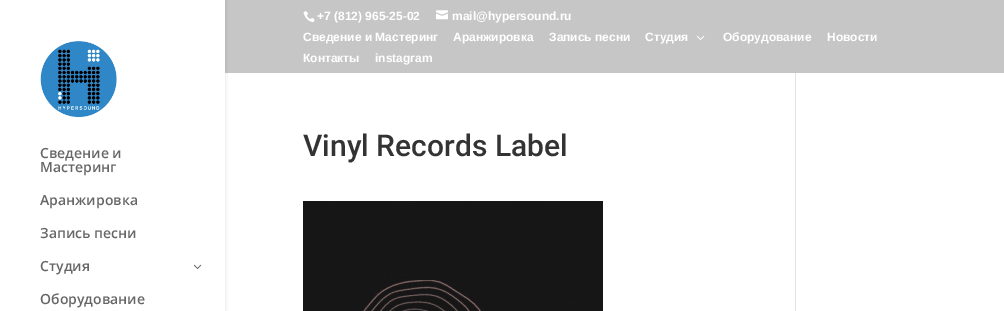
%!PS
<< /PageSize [1004 311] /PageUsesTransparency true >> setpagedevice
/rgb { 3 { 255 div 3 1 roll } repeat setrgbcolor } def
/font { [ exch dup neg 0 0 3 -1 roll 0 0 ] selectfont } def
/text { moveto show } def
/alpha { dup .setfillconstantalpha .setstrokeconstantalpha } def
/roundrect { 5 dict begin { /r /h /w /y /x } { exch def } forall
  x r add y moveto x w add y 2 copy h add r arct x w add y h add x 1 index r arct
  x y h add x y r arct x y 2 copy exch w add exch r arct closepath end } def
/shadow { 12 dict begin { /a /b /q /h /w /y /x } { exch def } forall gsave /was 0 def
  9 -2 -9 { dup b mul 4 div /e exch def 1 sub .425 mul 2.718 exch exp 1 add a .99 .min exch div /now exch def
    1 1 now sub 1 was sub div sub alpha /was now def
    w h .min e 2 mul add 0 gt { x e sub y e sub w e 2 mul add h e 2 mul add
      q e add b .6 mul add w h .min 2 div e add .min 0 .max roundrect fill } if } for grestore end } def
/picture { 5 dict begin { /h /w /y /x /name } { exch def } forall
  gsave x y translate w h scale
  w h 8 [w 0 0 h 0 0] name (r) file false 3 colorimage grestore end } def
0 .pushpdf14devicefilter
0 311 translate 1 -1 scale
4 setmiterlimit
255 255 255 rgb
0 0 1004 311 rectfill
198 198 198 rgb
225 0 779 73 rectfill
(img_01.rgb) 303 11 12 12 picture
(img_02.rgb) 436 10 12 10 picture
(img_03.rgb) 696 35 9 5 picture
gsave
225 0 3 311 rectclip
0 0 0 rgb
0 0 225 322 0 3.5 0.1 shadow
grestore
(img_04.rgb) 40 41 77 77 picture
(img_05.rgb) 193 264 9 5 picture
(img_06.rgb) 303 201 300 110 picture
226 226 226 rgb
795 73 1 238 rectfill
/LiberationSans-Bold 12 font
255 255 255 rgb
(+7 \(812\) 965-25-02) 317 20 text
(mail@hypersound.ru) 452 20 text
(Сведение и Мастеринг) 303 41 text
(Аранжировка) 453 41 text
(Запись песни) 549 41 text
(Студия) 645 41 text
(Оборудование) 723 41 text
(Новости) 827 41 text
(Контакты) 303 62 text
(instagram) 375 62 text
/OpenSans-SemiBold 14 font
102 102 102 rgb
(Сведение и) 40 158 text
(Мастеринг) 40 172 text
(Аранжировка) 40 205 text
(Запись песни) 40 238 text
(Студия) 40 271 text
(Оборудование) 40 304 text
/Roboto-Medium 30 font
51 51 51 rgb
(Vinyl Records Label) 303 156 text
.poppdf14devicefilter showpage
